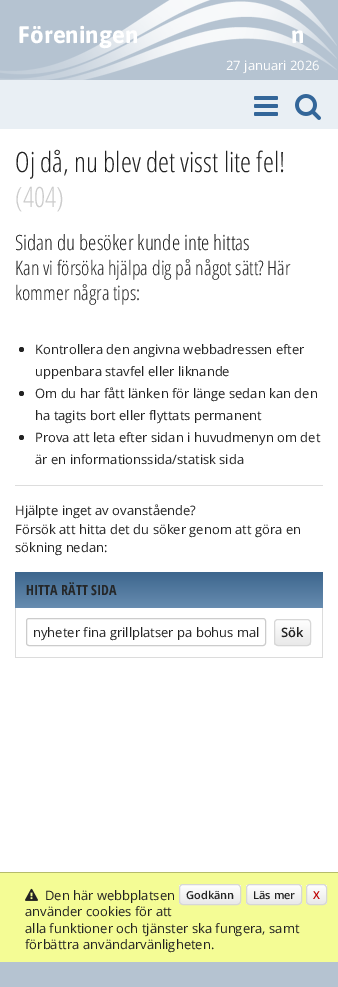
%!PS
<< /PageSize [338 987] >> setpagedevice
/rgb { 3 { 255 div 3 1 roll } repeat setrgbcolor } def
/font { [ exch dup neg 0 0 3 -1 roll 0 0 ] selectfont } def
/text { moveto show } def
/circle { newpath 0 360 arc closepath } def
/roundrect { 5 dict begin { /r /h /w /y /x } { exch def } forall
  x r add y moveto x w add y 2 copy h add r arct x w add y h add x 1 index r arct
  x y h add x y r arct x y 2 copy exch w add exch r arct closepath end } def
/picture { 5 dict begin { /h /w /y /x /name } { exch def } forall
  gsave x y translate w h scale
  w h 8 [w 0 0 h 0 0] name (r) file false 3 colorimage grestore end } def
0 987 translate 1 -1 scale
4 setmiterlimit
181 195 209 rgb
0 0 338 987 rectfill
(img_01.rgb) 0 0 337 80 picture
233 239 244 rgb
0 80 338 49 rectfill
(img_02.rgb) 254 96 24 20 picture
(img_03.rgb) 295 94 26 26 picture
255 255 255 rgb
0 129 338 743 rectfill
34 34 34 rgb
21.5 349.5 2.5 circle fill
21.5 393.5 2.5 circle fill
21.5 437.5 2.5 circle fill
221 221 221 rgb
15 485 308 1 rectfill
gsave 15 572 moveto 308 0 rlineto 0 36 rlineto -308 0 rlineto closepath clip newpath
<< /ShadingType 2 /ColorSpace /DeviceRGB /Coords [169 572 169 608] /Extend [true true] /Function << /FunctionType 2 /Domain [0 1] /C0 [0.239 0.4 0.553] /C1 [0.404 0.549 0.69] /N 1 >> >> shfill grestore
220 220 220 rgb
322 608 1 50 rectfill
15 657 308 1 rectfill
15 608 1 50 rectfill
204 204 204 rgb
26.5 618.5 239 27 2.5 roundrect stroke
gsave
274 619 37 27 4 roundrect clip newpath
gsave 274 620 moveto 37 0 rlineto 0 25 rlineto -37 0 rlineto closepath clip newpath
<< /ShadingType 2 /ColorSpace /DeviceRGB /Coords [293 620 293 645] /Extend [true true] /Function << /FunctionType 2 /Domain [0 1] /C0 [1 1 1] /C1 [0.914 0.914 0.914] /N 1 >> >> shfill grestore
grestore
215 215 215 rgb
274.5 619.5 36 26 3.5 roundrect stroke
244 252 149 rgb
0 873 338 89 rectfill
182 188 107 rgb
0 872 338 1 rectfill
(img_04.rgb) 25 888 13 13 picture
gsave
179 884 62 21 4 roundrect clip newpath
gsave 179 885 moveto 62 0 rlineto 0 19 rlineto -62 0 rlineto closepath clip newpath
<< /ShadingType 2 /ColorSpace /DeviceRGB /Coords [210 885 210 904] /Extend [true true] /Function << /FunctionType 2 /Domain [0 1] /C0 [1 1 1] /C1 [0.914 0.914 0.914] /N 1 >> >> shfill grestore
grestore
215 215 215 rgb
179.5 884.5 61 20 3.5 roundrect stroke
gsave
246 884 56 21 4 roundrect clip newpath
gsave 246 885 moveto 56 0 rlineto 0 19 rlineto -56 0 rlineto closepath clip newpath
<< /ShadingType 2 /ColorSpace /DeviceRGB /Coords [274 885 274 904] /Extend [true true] /Function << /FunctionType 2 /Domain [0 1] /C0 [1 1 1] /C1 [0.914 0.914 0.914] /N 1 >> >> shfill grestore
grestore
246.5 884.5 55 20 3.5 roundrect stroke
gsave
306 884 21 21 4 roundrect clip newpath
gsave 306 885 moveto 21 0 rlineto 0 19 rlineto -21 0 rlineto closepath clip newpath
<< /ShadingType 2 /ColorSpace /DeviceRGB /Coords [317 885 317 904] /Extend [true true] /Function << /FunctionType 2 /Domain [0 1] /C0 [1 1 1] /C1 [0.914 0.914 0.914] /N 1 >> >> shfill grestore
grestore
306.5 884.5 20 20 3.5 roundrect stroke
/Asap-Bold 24 font
255 255 255 rgb
(Föreningen) 18 43 text
(n) 291 43 text
/OpenSans-Regular 13 font
(27 januari 2026) 226 70 text
/OpenSansCondensed-Light 28 font
34 34 34 rgb
(Oj då, nu blev det visst lite fel!) 15 172 text
204 204 204 rgb
(\(404\)) 15 207 text
/OpenSansCondensed-Light 21 font
34 34 34 rgb
(Sidan du besöker kunde inte hittas) 15 250 text
/OpenSansCondensed-Light 20 font
(Kan vi försöka hjälpa dig på något sätt? Här) 15 275 text
(kommer några tips:) 15 300 text
/OpenSans-Regular 13 font
(Kontrollera den angivna webbadressen efter) 35 354 text
(uppenbara stavfel eller liknande) 35 376 text
(Om du har fått länken för länge sedan kan den) 35 398 text
(ha tagits bort eller flyttats permanent) 35 420 text
(Prova att leta efter sidan i huvudmenyn om det) 35 442 text
(är en informationssida/statisk sida) 35 464 text
(Hjälpte inget av ovanstående?) 15 515 text
(Försök att hitta det du söker genom att göra en) 15 534 text
(sökning nedan:) 15 552 text
/OpenSansCondensed-Bold 14 font
37 39 41 rgb
(HITTA RÄTT SIDA) 26 595 text
/OpenSans-Regular 13 font
34 34 34 rgb
(nyheter fina grillplatser pa bohus mal) 33 637 text
/OpenSans-SemiBold 13 font
(Sök) 281 637 text
/OpenSans-Regular 13 font
(Den här webbplatsen) 45 900 text
(använder cookies för att) 25 916 text
(alla funktioner och tjänster ska fungera, samt) 25 933 text
(förbättra användarvänligheten.) 25 949 text
/OpenSans-SemiBold 11 font
(Godkänn) 186 899 text
(Läs mer) 253 899 text
189 0 0 rgb
(X) 313 899 text
showpage
